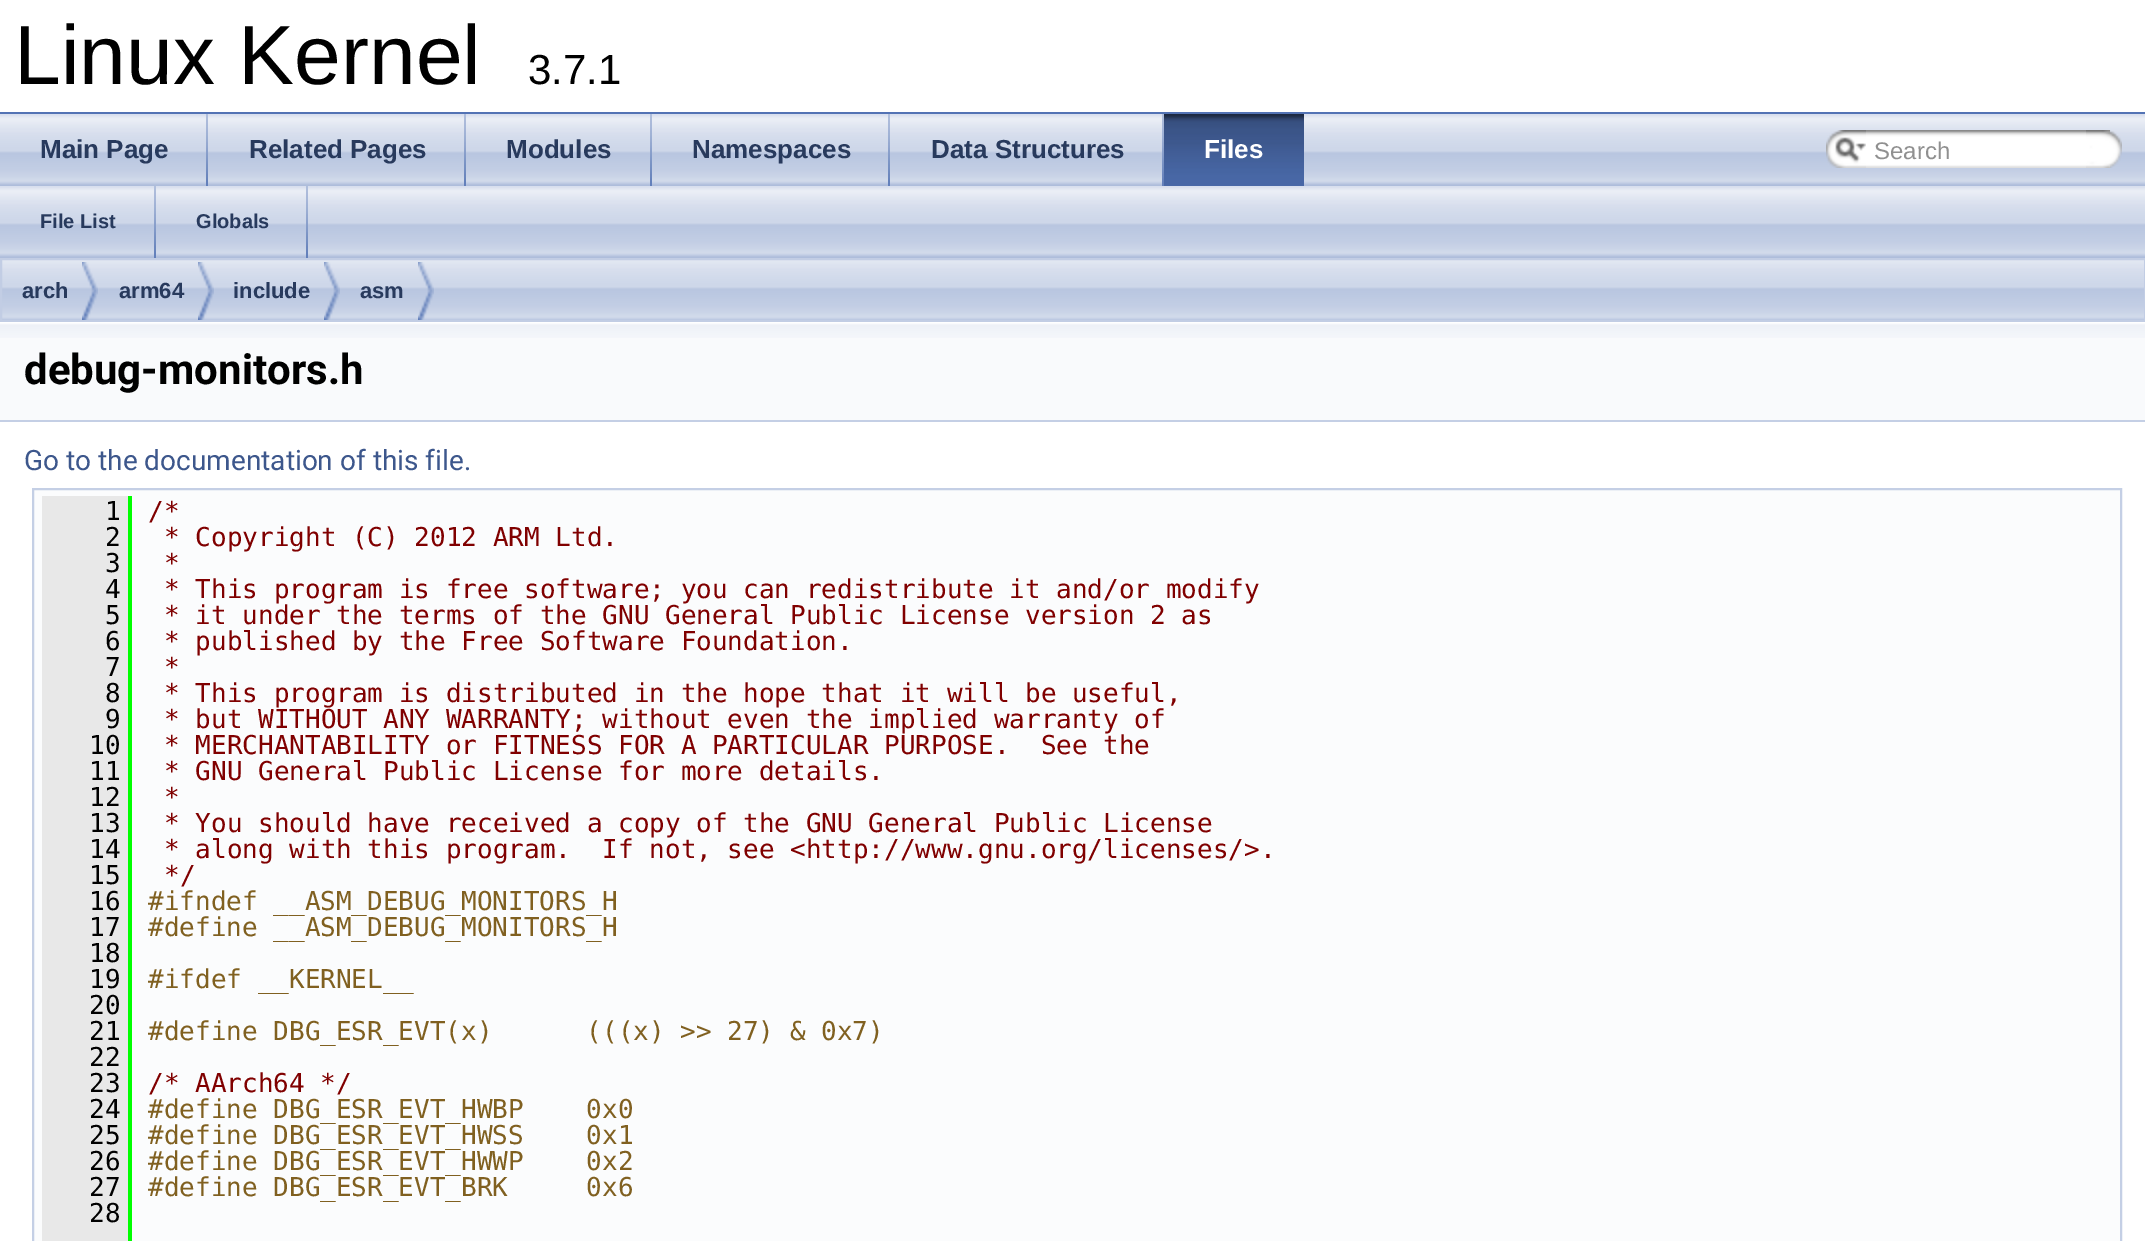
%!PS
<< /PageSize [2145 1241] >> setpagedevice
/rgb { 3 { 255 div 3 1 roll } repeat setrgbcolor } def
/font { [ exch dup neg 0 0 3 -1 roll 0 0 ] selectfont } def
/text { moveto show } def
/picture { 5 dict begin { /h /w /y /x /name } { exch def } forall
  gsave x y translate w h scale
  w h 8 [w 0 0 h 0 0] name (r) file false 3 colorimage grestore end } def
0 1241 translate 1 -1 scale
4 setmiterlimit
255 255 255 rgb
0 0 2145 1241 rectfill
83 115 180 rgb
0 112 2145 2 rectfill
(img_01.rgb) 0 114 2145 72 picture
(img_02.rgb) 206 114 2 72 picture
(img_02.rgb) 464 114 2 72 picture
(img_02.rgb) 650 114 2 72 picture
(img_02.rgb) 888 114 2 72 picture
(img_02.rgb) 1162 114 2 72 picture
(img_03.rgb) 1164 114 140 72 picture
(img_04.rgb) 1826 130 40 38 picture
(img_05.rgb) 1835 137 31 26 picture
(img_06.rgb) 1866 130 244 38 picture
(img_07.rgb) 2086 130 36 38 picture
(img_01.rgb) 0 186 2145 72 picture
(img_02.rgb) 154 186 2 72 picture
(img_02.rgb) 306 186 2 72 picture
(img_08.rgb) 2 260 2142 60 picture
194 205 228 rgb
2 setlinewidth
1 259 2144 62 rectstroke
(img_09.rgb) 82 262 16 58 picture
(img_09.rgb) 198 262 16 58 picture
(img_09.rgb) 324 262 16 58 picture
(img_09.rgb) 418 262 16 58 picture
249 250 252 rgb
0 338 2145 82 rectfill
(img_10.rgb) 0 322 2145 16 picture
196 207 229 rgb
0 420 2145 2 rectfill
251 252 253 rgb
33 489 moveto 2088 0 rlineto 0 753 rlineto -2088 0 rlineto closepath gsave fill grestore
196 207 229 rgb
stroke
232 232 232 rgb
42 496 86 745 rectfill
0 255 0 rgb
128 496 4 745 rectfill
/LiberationSans-Regular 84 font
0 0 0 rgb
(Linux Kernel) 14 84 text
/LiberationSans-Regular 42 font
(3.7.1) 528 84 text
/LiberationSans-Bold 26 font
40 58 93 rgb
(Main Page) 40 158 text
(Related Pages) 249 158 text
(Modules) 506 158 text
(Namespaces) 692 158 text
(Data Structures) 931 158 text
255 255 255 rgb
(Files) 1204 158 text
/LiberationSans-Regular 24 font
144 144 144 rgb
(Search) 1874 159 text
/LiberationSans-Bold 20 font
40 58 93 rgb
(File List) 40 228 text
(Globals) 196 228 text
/LiberationSans-Bold 22 font
(arch) 22 298 text
(arm64) 119 298 text
(include) 233 298 text
(asm) 360 298 text
/Roboto-Bold 42 font
0 0 0 rgb
(debug-monitors.h) 24 384 text
/Roboto-Regular 28 font
61 87 140 rgb
(Go to the documentation of this file.) 24 470 text
/DejaVuSansMono-Regular 26 font
0 0 0 rgb
(1) 105 520 text
128 0 0 rgb
(/*) 148 520 text
0 0 0 rgb
(2) 105 546 text
128 0 0 rgb
(* Copyright \(C\) 2012 ARM Ltd.) 164 546 text
0 0 0 rgb
(3) 105 572 text
128 0 0 rgb
(*) 164 572 text
0 0 0 rgb
(4) 105 598 text
128 0 0 rgb
(* This program is free software; you can redistribute it and/or modify) 164 598 text
0 0 0 rgb
(5) 105 624 text
128 0 0 rgb
(* it under the terms of the GNU General Public License version 2 as) 164 624 text
0 0 0 rgb
(6) 105 650 text
128 0 0 rgb
(* published by the Free Software Foundation.) 164 650 text
0 0 0 rgb
(7) 105 676 text
128 0 0 rgb
(*) 164 676 text
0 0 0 rgb
(8) 105 702 text
128 0 0 rgb
(* This program is distributed in the hope that it will be useful,) 164 702 text
0 0 0 rgb
(9) 105 728 text
128 0 0 rgb
(* but WITHOUT ANY WARRANTY; without even the implied warranty of) 164 728 text
0 0 0 rgb
(10) 89 754 text
128 0 0 rgb
(* MERCHANTABILITY or FITNESS FOR A PARTICULAR PURPOSE.  See the) 164 754 text
0 0 0 rgb
(11) 89 780 text
128 0 0 rgb
(* GNU General Public License for more details.) 164 780 text
0 0 0 rgb
(12) 89 806 text
128 0 0 rgb
(*) 164 806 text
0 0 0 rgb
(13) 89 832 text
128 0 0 rgb
(* You should have received a copy of the GNU General Public License) 164 832 text
0 0 0 rgb
(14) 89 858 text
128 0 0 rgb
(* along with this program.  If not, see <http://www.gnu.org/licenses/>.) 164 858 text
0 0 0 rgb
(15) 89 884 text
128 0 0 rgb
(*/) 164 884 text
0 0 0 rgb
(16) 89 910 text
128 96 32 rgb
(#ifndef __ASM_DEBUG_MONITORS_H) 148 910 text
0 0 0 rgb
(17) 89 936 text
128 96 32 rgb
(#define __ASM_DEBUG_MONITORS_H) 148 936 text
0 0 0 rgb
(18) 89 962 text
(19) 89 988 text
128 96 32 rgb
(#ifdef __KERNEL__) 148 988 text
0 0 0 rgb
(20) 89 1014 text
(21) 89 1040 text
128 96 32 rgb
(#define DBG_ESR_EVT\(x\)      \(\(\(x\) >> 27\) & 0x7\)) 148 1040 text
0 0 0 rgb
(22) 89 1066 text
(23) 89 1092 text
128 0 0 rgb
(/* AArch64 */) 148 1092 text
0 0 0 rgb
(24) 89 1118 text
128 96 32 rgb
(#define DBG_ESR_EVT_HWBP    0x0) 148 1118 text
0 0 0 rgb
(25) 89 1144 text
128 96 32 rgb
(#define DBG_ESR_EVT_HWSS    0x1) 148 1144 text
0 0 0 rgb
(26) 89 1170 text
128 96 32 rgb
(#define DBG_ESR_EVT_HWWP    0x2) 148 1170 text
0 0 0 rgb
(27) 89 1196 text
128 96 32 rgb
(#define DBG_ESR_EVT_BRK     0x6) 148 1196 text
0 0 0 rgb
(28) 89 1222 text
showpage
